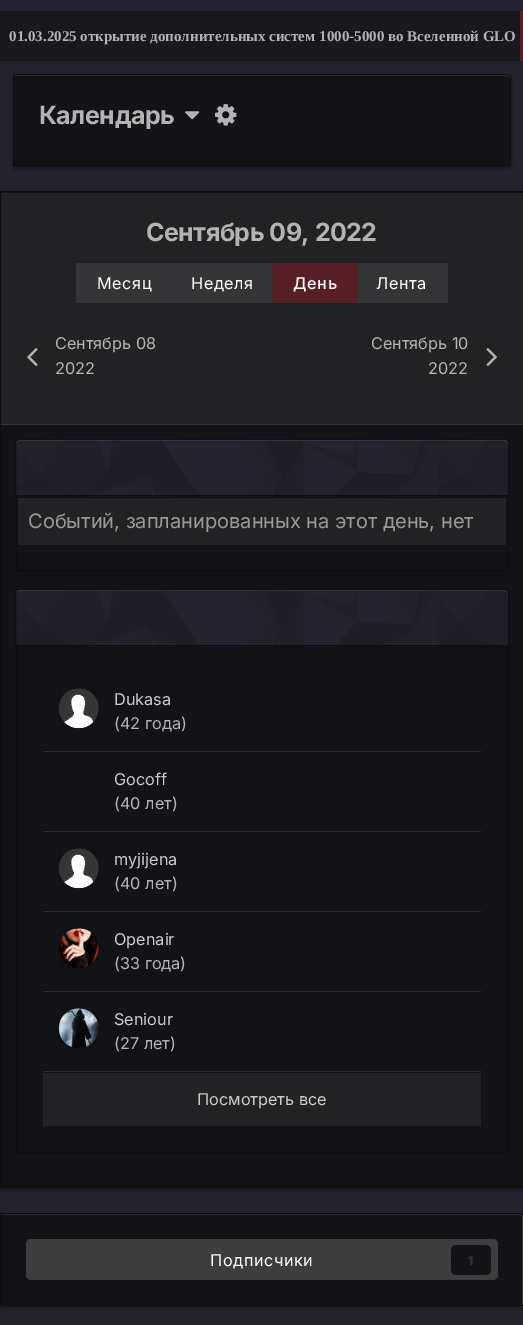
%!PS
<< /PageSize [523 1325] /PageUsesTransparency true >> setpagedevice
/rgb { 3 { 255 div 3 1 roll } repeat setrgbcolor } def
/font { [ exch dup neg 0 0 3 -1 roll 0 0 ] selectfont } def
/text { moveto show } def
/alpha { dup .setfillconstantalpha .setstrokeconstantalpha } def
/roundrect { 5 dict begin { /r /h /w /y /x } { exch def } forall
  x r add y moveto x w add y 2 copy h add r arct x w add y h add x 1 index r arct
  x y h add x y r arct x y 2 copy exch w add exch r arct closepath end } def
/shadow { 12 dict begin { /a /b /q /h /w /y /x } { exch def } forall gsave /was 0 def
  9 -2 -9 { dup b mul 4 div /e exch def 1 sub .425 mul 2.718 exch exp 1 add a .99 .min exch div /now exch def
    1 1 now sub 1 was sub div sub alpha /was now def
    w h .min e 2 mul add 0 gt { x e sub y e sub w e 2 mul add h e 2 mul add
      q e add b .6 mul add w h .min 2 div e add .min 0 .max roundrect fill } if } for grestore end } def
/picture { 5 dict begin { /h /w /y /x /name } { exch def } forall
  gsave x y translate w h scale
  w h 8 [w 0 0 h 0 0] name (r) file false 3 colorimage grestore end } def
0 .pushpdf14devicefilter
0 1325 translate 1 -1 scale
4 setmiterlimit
35 35 49 rgb
0 0 523 1325 rectfill
88 32 38 rgb
520 11 3 50 rectfill
24 25 29 rgb
0 11 520 50 rectfill
34 35 44 rgb
0 61 523 1264 rectfill
0 0 0 rgb
13 76 498 93 2.5 2.5 0.3 shadow
18 19 23 rgb
15.5 74 moveto 493 0 rlineto 1.5 0 2.5 1 2.5 2.5 rcurveto 0 89.5 rlineto -498 0 rlineto 0 -89.5 rlineto 0 -1.5 1 -2.5 2.5 -2.5 rcurveto closepath fill
54 54 58 rgb
15 76 moveto 494 0 rlineto 1 2 rlineto 0 -2 rlineto 0 -1 0 -1 -1 -1 rcurveto -494 0 rlineto -1 0 -1 0 -1 1 rcurveto 0 2 rlineto 0 -1 0 -2 1 -2 rcurveto closepath fill
13 14 18 rgb
15.5 74.5 moveto 493 0 rlineto 1 0 2 1 2 2 rcurveto 0 89 rlineto -497 0 rlineto 0 -89 rlineto 0 -1 1 -2 2 -2 rcurveto closepath stroke
(img_01.rgb) 185 111 15 9 picture
(img_02.rgb) 215 104 22 22 picture
0 0 0 rgb
0 194 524 996 0 2.5 0.3 shadow
18 19 23 rgb
0.5 191.5 moveto 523 0 rlineto 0 996 rlineto -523 0 rlineto closepath gsave fill grestore
13 14 18 rgb
stroke
33 34 36 rgb
1 193 522 231 rectfill
51 52 54 rgb
1 424 522 1 rectfill
52 52 54 rgb
76 263 197 40 rectfill
88 32 38 rgb
273 263 85 40 rectfill
52 52 54 rgb
358 263 90 40 rectfill
(img_03.rgb) 27 348 11 18 picture
(img_04.rgb) 486 348 11 18 picture
13 14 18 rgb
18.5 440.5 moveto 487 0 rlineto 1 0 2 1 2 2 rcurveto 0 128 rlineto -491 0 rlineto 0 -128 rlineto 0 -1 1 -2 2 -2 rcurveto closepath stroke
28 29 38 rgb
18.5 440 moveto 487 0 rlineto 1.5 0 2.5 1 2.5 2.5 rcurveto 0 52.5 rlineto -492 0 rlineto 0 -52.5 rlineto 0 -1.5 1 -2.5 2.5 -2.5 rcurveto closepath fill
(img_05.rgb) 15 438 493 59 picture
0.15 alpha
255 255 255 rgb
19 441 moveto 486 0 rlineto 1 0 3 1 3 3 rcurveto 0 -2 0 -4 -2 -4 rcurveto -488 0 rlineto -2 1 rlineto 0 3 rlineto 0 -2 1 -3 3 -3 rcurveto closepath fill
1 alpha
13 14 18 rgb
19 439.5 moveto 486 0 rlineto 2 0 3.5 1.5 3.5 3.5 rcurveto 0 54.5 rlineto -493 0 rlineto 0 -54.5 rlineto 0 -2 1.5 -3.5 3.5 -3.5 rcurveto closepath stroke
15 495 494 1 rectfill
33 34 36 rgb
18 498 488 47 rectfill
13 14 18 rgb
18.5 590.5 moveto 487 0 rlineto 1 0 2 1 2 2 rcurveto 0 560 rlineto -491 0 rlineto 0 -560 rlineto 0 -1 1 -2 2 -2 rcurveto closepath stroke
28 29 38 rgb
18.5 590 moveto 487 0 rlineto 1.5 0 2.5 1 2.5 2.5 rcurveto 0 52.5 rlineto -492 0 rlineto 0 -52.5 rlineto 0 -1.5 1 -2.5 2.5 -2.5 rcurveto closepath fill
(img_05.rgb) 15 588 493 59 picture
0.15 alpha
255 255 255 rgb
19 591 moveto 486 0 rlineto 1 0 3 1 3 3 rcurveto 0 -2 0 -4 -2 -4 rcurveto -488 0 rlineto -2 1 rlineto 0 3 rlineto 0 -2 1 -3 3 -3 rcurveto closepath fill
1 alpha
13 14 18 rgb
19 589.5 moveto 486 0 rlineto 2 0 3.5 1.5 3.5 3.5 rcurveto 0 54.5 rlineto -493 0 rlineto 0 -54.5 rlineto 0 -2 1.5 -3.5 3.5 -3.5 rcurveto closepath stroke
15 645 494 1 rectfill
42 43 46 rgb
43 751 438 1 rectfill
(img_06.rgb) 59 688 40 41 picture
43 831 438 1 rectfill
43 911 438 1 rectfill
(img_07.rgb) 59 848 40 41 picture
43 991 438 1 rectfill
(img_08.rgb) 59 928 40 40 picture
43 1071 438 1 rectfill
(img_09.rgb) 58 1008 41 40 picture
33 34 36 rgb
43 1073 438 53 rectfill
0 0 0 rgb
0 1215 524 94 2.5 2.5 0.3 shadow
18 19 23 rgb
2.5 1213 moveto 519 0 rlineto 1.5 0 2.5 1 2.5 2.5 rcurveto 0 90.5 rlineto -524 0 rlineto 0 -90.5 rlineto 0 -1.5 1 -2.5 2.5 -2.5 rcurveto closepath fill
54 54 58 rgb
2 1215 moveto 519 0 rlineto 1 0 1 1 1 1 rcurveto 0 89 rlineto 1 0 rlineto 0 -90 rlineto -1 -1 rlineto -520 0 rlineto -1 2 rlineto closepath fill
13 14 18 rgb
2.5 1213.5 moveto 519 0 rlineto 1 0 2 1 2 2 rcurveto 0 90 rlineto -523 0 rlineto 0 -90 rlineto 0 -1 1 -2 2 -2 rcurveto closepath stroke
61 61 61 rgb
26 1239 472 41 5 roundrect fill
18 19 23 rgb
451 1245 40 30 5 roundrect fill
/LiberationSerif-Bold 15 font
179 179 179 rgb
(01.03.2025 открытие дополнительных систем 1000-5000 во Вселенной GLO) 9 41 text
/Inter-Bold 25 font
39 124 moveto -0.5 0 (Календарь) ashow
146 241 moveto -0.5 0 (Сентябрь 09, 2022) ashow
/Inter-Regular 16.25 font
255 255 255 rgb
97 289 moveto 0.6 0 (Месяц) ashow
191 289 moveto 0.6 0 (Неделя) ashow
/Inter-Medium 16.25 font
293 289 moveto 0.6 0 (День) ashow
/Inter-Regular 16.25 font
376 289 moveto 0.6 0 (Лента) ashow
179 179 179 rgb
(Сентябрь 08) 55 349 text
(2022) 55 374 text
(Сентябрь 10) 371 349 text
(2022) 428 374 text
/Inter-Regular 20 font
153 153 153 rgb
(Событий, запланированных на этот день, нет) 28 528 text
/Inter-Regular 16.25 font
204 204 204 rgb
(Dukasa) 114 705 text
179 179 179 rgb
(\(42 года\)) 114 729 text
204 204 204 rgb
(Gocoff) 114 785 text
179 179 179 rgb
(\(40 лет\)) 114 809 text
204 204 204 rgb
(myjijena) 114 865 text
179 179 179 rgb
(\(40 лет\)) 114 889 text
204 204 204 rgb
(Openair) 114 945 text
179 179 179 rgb
(\(33 года\)) 114 969 text
204 204 204 rgb
(Seniour) 114 1025 text
179 179 179 rgb
(\(27 лет\)) 114 1049 text
204 204 204 rgb
(Посмотреть все) 197 1105 text
255 255 255 rgb
210 1266 moveto 0.6 0 (Подписчики) ashow
/Inter-Bold 12 font
45 55 72 rgb
468 1265 moveto 0.6 0 (1) ashow
.poppdf14devicefilter showpage
